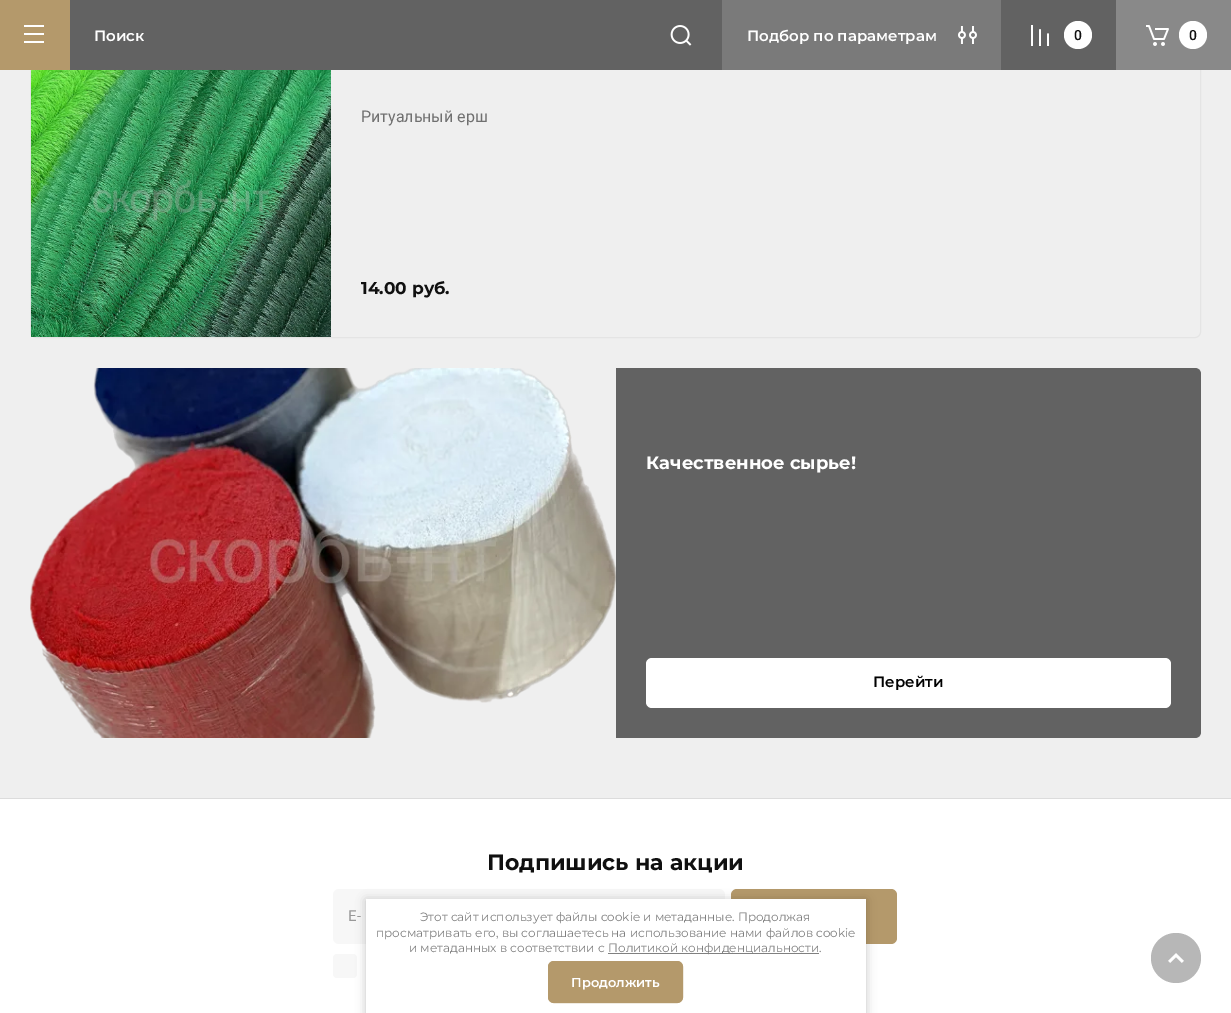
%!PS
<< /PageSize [1231 1013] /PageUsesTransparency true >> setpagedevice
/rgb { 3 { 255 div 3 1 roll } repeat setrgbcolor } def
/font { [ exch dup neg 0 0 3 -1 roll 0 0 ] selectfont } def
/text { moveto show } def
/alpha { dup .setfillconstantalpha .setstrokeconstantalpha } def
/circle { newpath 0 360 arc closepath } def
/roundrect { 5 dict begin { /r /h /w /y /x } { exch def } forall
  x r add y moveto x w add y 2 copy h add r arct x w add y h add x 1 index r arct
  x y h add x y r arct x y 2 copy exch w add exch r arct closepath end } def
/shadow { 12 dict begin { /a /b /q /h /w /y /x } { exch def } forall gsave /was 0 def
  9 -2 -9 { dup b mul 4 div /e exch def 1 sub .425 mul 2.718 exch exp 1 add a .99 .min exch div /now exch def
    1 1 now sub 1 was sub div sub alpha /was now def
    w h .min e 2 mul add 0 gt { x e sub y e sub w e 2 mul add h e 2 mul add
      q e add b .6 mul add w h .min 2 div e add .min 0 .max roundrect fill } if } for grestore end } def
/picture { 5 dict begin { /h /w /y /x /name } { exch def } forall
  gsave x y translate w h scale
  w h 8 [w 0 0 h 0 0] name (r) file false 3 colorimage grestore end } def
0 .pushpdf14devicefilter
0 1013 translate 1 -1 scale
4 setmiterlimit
255 255 255 rgb
0 0 1231 1013 rectfill
239 239 239 rgb
0 70 1231 728 rectfill
228 228 228 rgb
30.5 56.5 moveto 1170 0 rlineto 0 275.5 rlineto 0 3 -2.5 5.5 -5.5 5.5 rcurveto -1159 0 rlineto -3 0 -5.5 -2.5 -5.5 -5.5 rcurveto closepath stroke
180 153 107 rgb
0 0 70 70 rectfill
(img_01.rgb) 24 25 20 18 picture
98 98 98 rgb
70 0 652 70 rectfill
(img_02.rgb) 670 25 22 21 picture
122 122 122 rgb
722 0 279 70 rectfill
(img_03.rgb) 958 26 19 18 picture
98 98 98 rgb
1001 0 115 70 rectfill
(img_04.rgb) 1031 25 18 21 picture
255 255 255 rgb
1078 35 14 circle fill
137 137 137 rgb
1116 0 115 70 rectfill
(img_05.rgb) 1146 25 23 21 picture
255 255 255 rgb
1193 35 14 circle fill
220 220 220 rgb
0 798 1231 1 rectfill
(img_06.rgb) 31 70 300 267 picture
(img_07.rgb) 30 368 586 370 picture
98 98 98 rgb
616 368 moveto 579 0 rlineto 3.5 0 6 2.5 6 6 rcurveto 0 358 rlineto 0 3.5 -2.5 6 -6 6 rcurveto -579 0 rlineto closepath fill
255 255 255 rgb
646 658 525 50 6 roundrect fill
247 247 247 rgb
333 889 392 55 6 roundrect fill
180 153 107 rgb
731 889 166 55 6 roundrect fill
247 247 247 rgb
333 954 24 24 4 roundrect fill
183 183 183 rgb
1176 958 25 circle fill
(img_08.rgb) 1168 953 16 10 picture
0 0 0 rgb
366 900 500 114 0 5 0.23 shadow
255 255 255 rgb
366 899 500 114 rectfill
128 128 128 rgb
608 953 211 1 rectfill
180 153 107 rgb
548 961 135 42 6 roundrect fill
0.75 alpha
2 setlinewidth
549 962 133 40 5 roundrect stroke
/Montserrat-SemiBold 15 font
1 alpha
255 255 255 rgb
(Поиск) 94 41 text
(Подбор по параметрам) 747 41 text
/Roboto-Medium 14 font
16 16 16 rgb
(0) 1074 40 text
(0) 1189 40 text
/Roboto-Regular 16 font
112 112 112 rgb
(Ритуальный ерш) 361 122 text
/Montserrat-Bold 17 font
16 16 16 rgb
(14.00 руб.) 361 294 text
/Montserrat-Bold 18 font
255 255 255 rgb
(Качественное сырье!) 646 469 text
/Montserrat-SemiBold 15 font
0 0 0 rgb
(Перейти) 873 687 text
/Montserrat-Bold 22 font
16 16 16 rgb
(Подпишись на акции) 487 870 text
/Roboto-Regular 15 font
152 152 152 rgb
(E-) 348 921 text
/Montserrat-Regular 12 font
128 128 128 rgb
(Этот сайт использует файлы cookie и метаданные. Продолжая) 420 921 text
(просматривать его, вы соглашаетесь на использование нами файлов cookie) 376 937 text
(и метаданных в соответствии с) 409 952 text
(Политикой конфиденциальности.) 608 952 text
/Montserrat-SemiBold 13 font
255 255 255 rgb
(Продолжить) 571 987 text
.poppdf14devicefilter showpage
